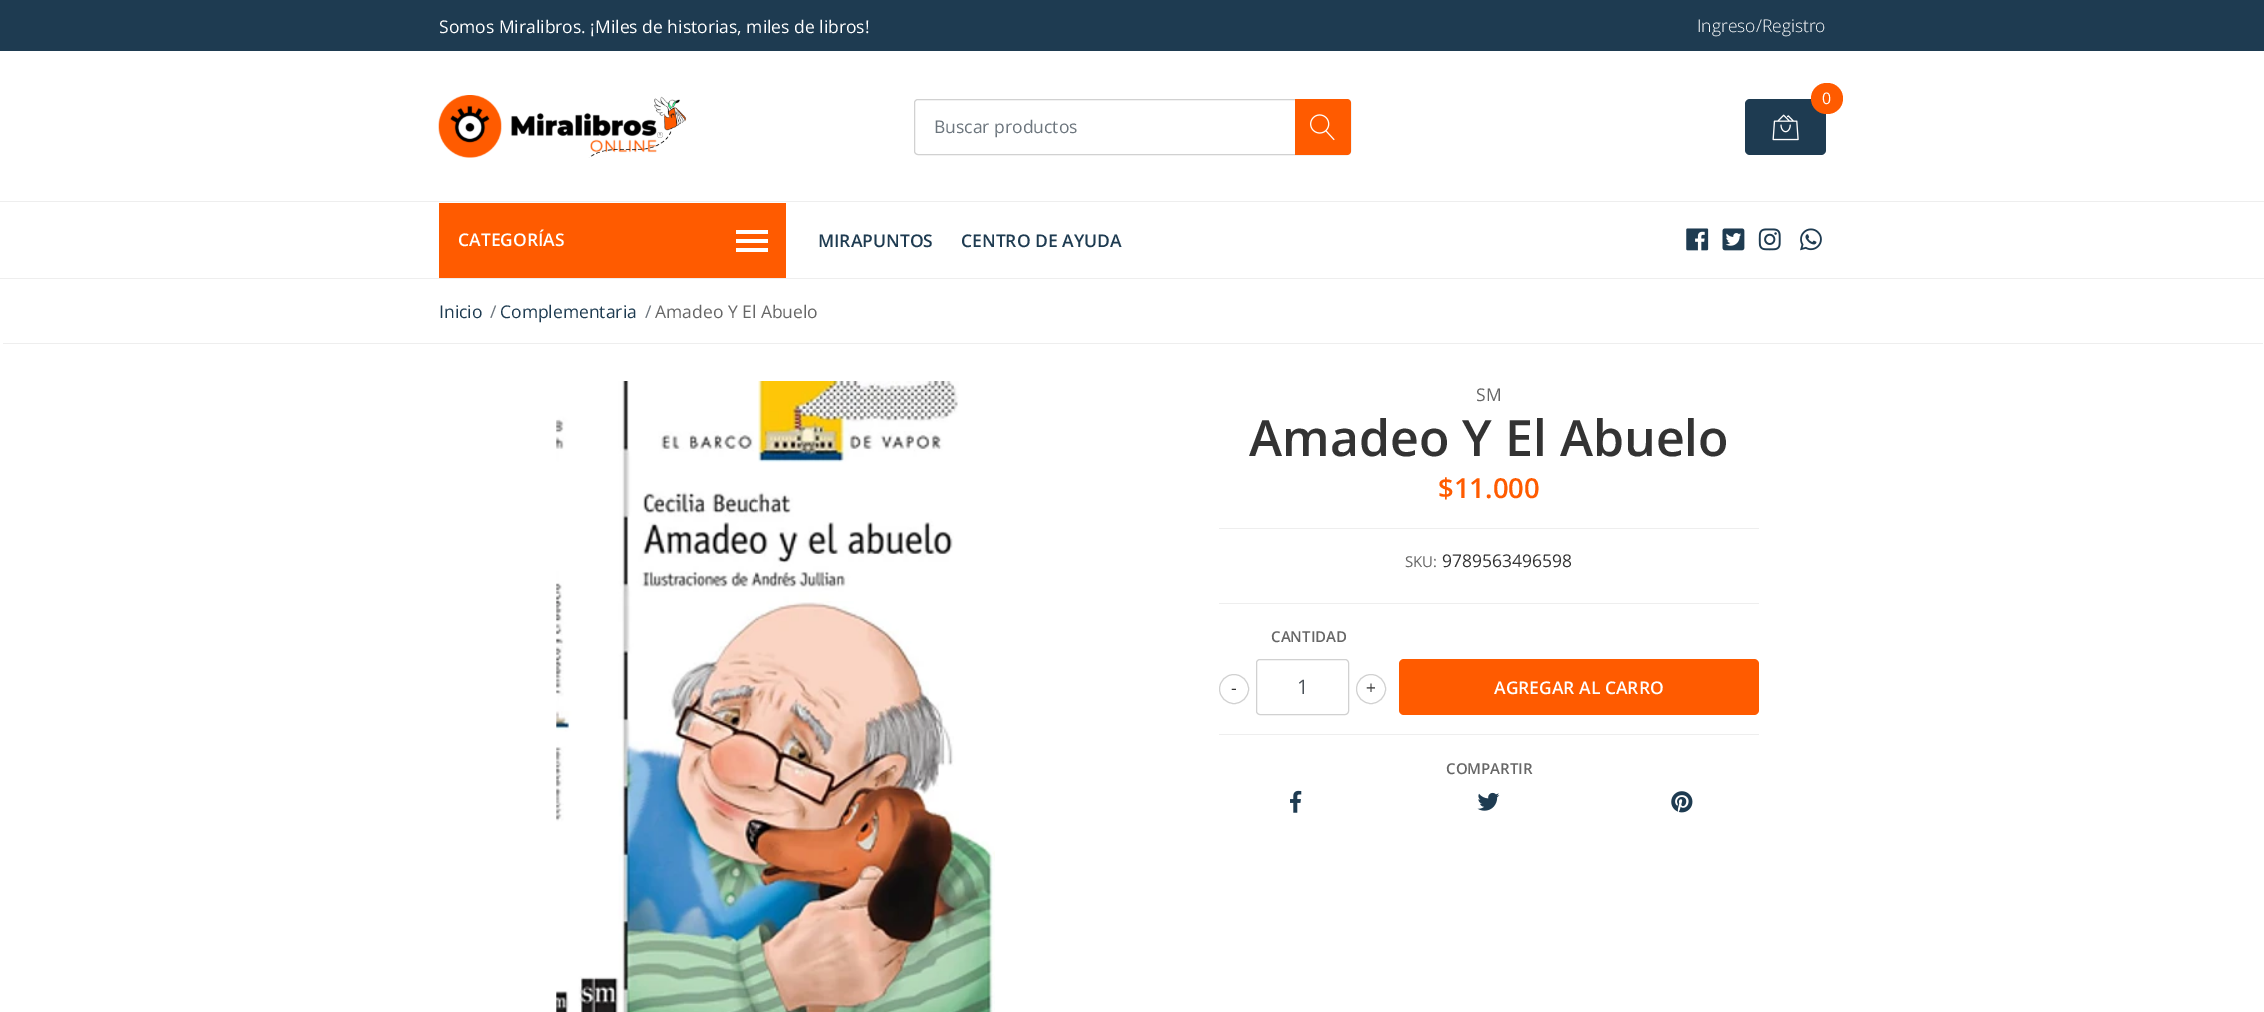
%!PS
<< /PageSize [2264 1012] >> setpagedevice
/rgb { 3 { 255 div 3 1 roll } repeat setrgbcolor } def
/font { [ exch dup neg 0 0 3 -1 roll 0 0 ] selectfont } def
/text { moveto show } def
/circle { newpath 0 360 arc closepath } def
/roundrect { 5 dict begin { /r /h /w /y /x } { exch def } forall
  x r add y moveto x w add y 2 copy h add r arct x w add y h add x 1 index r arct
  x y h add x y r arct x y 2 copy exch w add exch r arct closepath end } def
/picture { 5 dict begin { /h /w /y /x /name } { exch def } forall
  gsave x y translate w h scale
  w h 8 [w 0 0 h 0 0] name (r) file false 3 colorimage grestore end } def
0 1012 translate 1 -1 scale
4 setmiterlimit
255 255 255 rgb
0 0 2264 1012 rectfill
30 59 81 rgb
0 0 2264 51 rectfill
(img_01.rgb) 438 95 249 63 picture
209 209 209 rgb
914.5 99.5 436 55 3.5 roundrect stroke
255 91 0 rgb
1295 99 moveto 52 0 rlineto 2 0 4 2 4 4 rcurveto 0 48 rlineto 0 2 -2 4 -4 4 rcurveto -52 0 rlineto closepath fill
(img_02.rgb) 1310 114 25 27 picture
30 59 81 rgb
1745 99 81 56 5 roundrect fill
(img_03.rgb) 1772 114 27 27 picture
255 91 0 rgb
1811 83 32 31 15.5 roundrect fill
238 238 238 rgb
0 201 2264 1 rectfill
0 278 2264 1 rectfill
255 91 0 rgb
439 203 347 75 rectfill
255 255 255 rgb
736 230 32 4 rectfill
736 239 32 4 rectfill
736 248 32 4 rectfill
(img_04.rgb) 1686 228 23 23 picture
(img_05.rgb) 1722 228 23 23 picture
(img_06.rgb) 1758 228 23 23 picture
(img_07.rgb) 1800 228 22 23 picture
238 238 238 rgb
3 343 2260 1 rectfill
(img_08.rgb) 556 381 439 631 picture
1219 528 540 1 rectfill
1219 603 540 1 rectfill
1219 734 540 1 rectfill
209 209 209 rgb
1256.5 659.5 92 55 3.5 roundrect stroke
1234 689 14.5 circle stroke
1371 689 14.5 circle stroke
255 91 0 rgb
1399 659 360 56 5 roundrect fill
(img_09.rgb) 1290 790 12 23 picture
(img_10.rgb) 1477 792 23 19 picture
(img_11.rgb) 1671 791 22 22 picture
/OpenSans-Regular 17.5 font
255 255 255 rgb
(Somos Miralibros. ¡Miles de historias, miles de libros!) 439 33 text
/OpenSans-Light 17.5 font
(Ingreso/Registro) 1697 32 text
/OpenSans-Regular 17.5 font
108 117 125 rgb
(Buscar productos) 934 133 text
/OpenSans-Regular 16 font
255 255 255 rgb
(0) 1822 104 text
/OpenSans-SemiBold 17.5 font
(CATEGORÍAS) 458 246 text
30 59 81 rgb
(MIRAPUNTOS) 818 247 text
(CENTRO DE AYUDA) 961 247 text
/OpenSans-Regular 17.5 font
(Inicio) 439 318 text
108 117 125 rgb
(/) 490 318 text
30 59 81 rgb
(Complementaria) 500 318 text
108 117 125 rgb
(/) 645 318 text
102 102 102 rgb
(Amadeo Y El Abuelo) 655 318 text
(SM) 1476 401 text
/OpenSans-SemiBold 50 font
51 51 51 rgb
(Amadeo Y El Abuelo) 1249 456 text
/OpenSans-SemiBold 27.5 font
255 91 0 rgb
($11.000) 1438 498 text
/OpenSans-Regular 15 font
102 102 102 rgb
(SKU:) 1405 567 text
/OpenSans-Regular 17.5 font
51 51 51 rgb
(9789563496598) 1442 567 text
/OpenSans-SemiBold 15 font
102 102 102 rgb
(CANTIDAD) 1271 642 text
/OpenSans-Regular 20 font
73 80 87 rgb
(1) 1297 694 text
/OpenSans-Regular 17.5 font
51 51 51 rgb
(-) 1231 694 text
(+) 1366 694 text
/OpenSans-SemiBold 17.5 font
255 255 255 rgb
(AGREGAR AL CARRO) 1494 694 text
/OpenSans-SemiBold 15 font
102 102 102 rgb
(COMPARTIR) 1446 774 text
showpage
